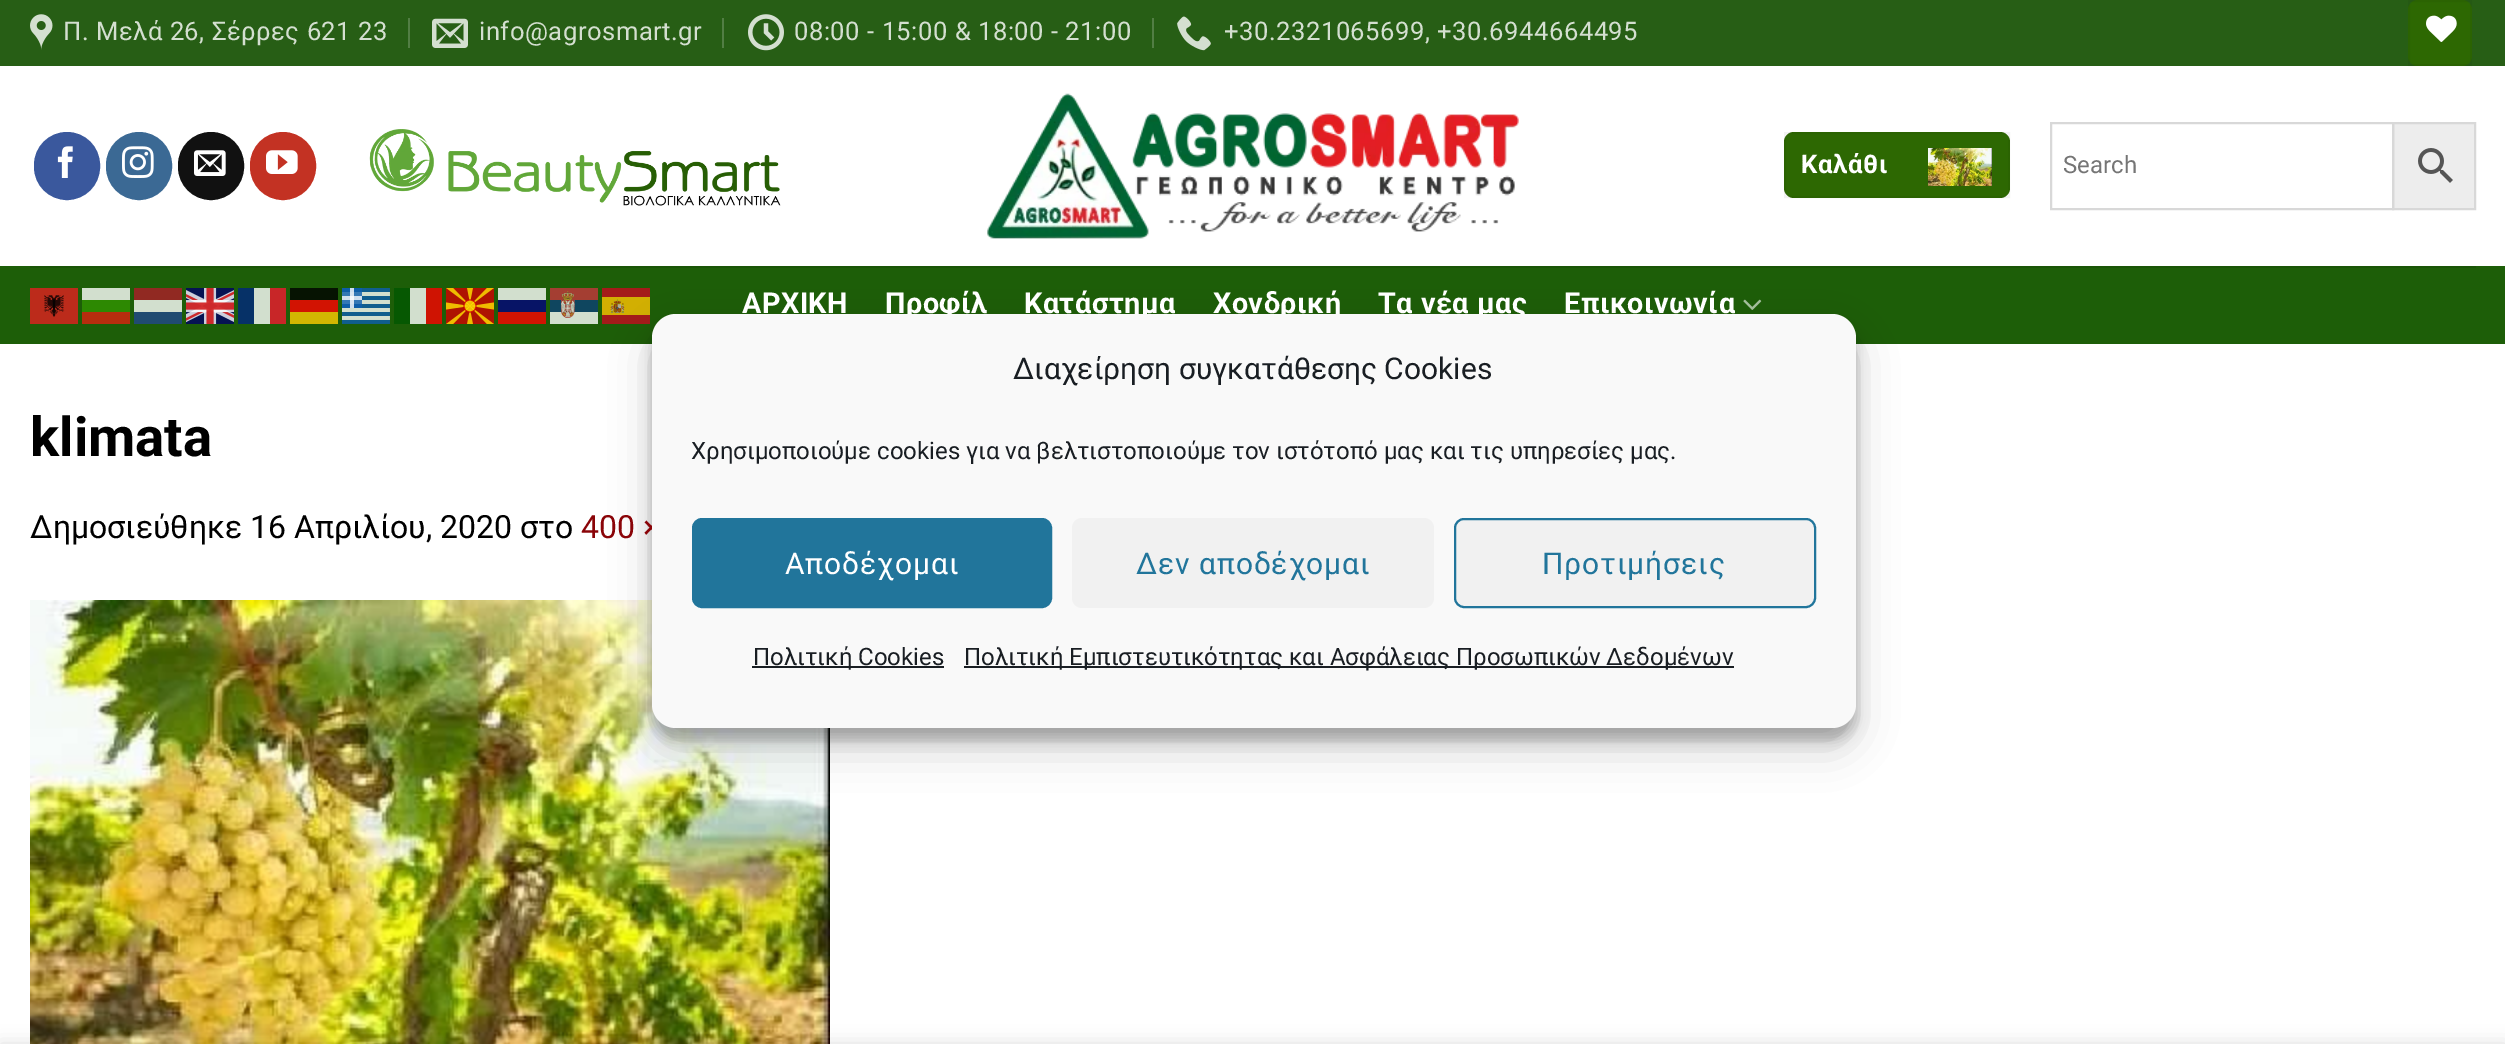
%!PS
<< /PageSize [2505 1044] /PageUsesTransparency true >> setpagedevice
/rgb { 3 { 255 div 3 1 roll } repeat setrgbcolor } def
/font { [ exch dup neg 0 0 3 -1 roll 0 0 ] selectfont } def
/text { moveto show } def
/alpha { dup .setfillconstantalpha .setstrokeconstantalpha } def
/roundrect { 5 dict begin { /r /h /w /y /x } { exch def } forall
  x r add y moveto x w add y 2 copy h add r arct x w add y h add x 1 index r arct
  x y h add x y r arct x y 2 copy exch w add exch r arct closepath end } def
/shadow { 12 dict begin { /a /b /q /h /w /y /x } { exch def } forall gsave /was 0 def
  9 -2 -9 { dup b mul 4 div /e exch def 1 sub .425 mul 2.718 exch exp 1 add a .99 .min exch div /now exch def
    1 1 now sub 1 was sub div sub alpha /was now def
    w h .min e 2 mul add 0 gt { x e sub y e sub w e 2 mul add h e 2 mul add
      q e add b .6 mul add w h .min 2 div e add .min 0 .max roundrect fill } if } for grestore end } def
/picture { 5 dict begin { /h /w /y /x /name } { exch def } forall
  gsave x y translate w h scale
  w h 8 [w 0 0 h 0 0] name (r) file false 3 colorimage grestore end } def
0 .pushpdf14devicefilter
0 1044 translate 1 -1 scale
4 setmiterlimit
255 255 255 rgb
0 0 2505 1044 rectfill
39 94 21 rgb
0 0 2505 66 rectfill
(img_01.rgb) 30 14 23 36 picture
82 126 68 rgb
408 18 2 30 rectfill
(img_02.rgb) 432 18 36 30 picture
722 18 2 30 rectfill
(img_03.rgb) 748 14 36 37 picture
1152 18 2 30 rectfill
(img_04.rgb) 1177 16 34 35 picture
45 104 2 rgb
2408 0 64 66 10 roundrect fill
0.05 alpha
0 0 0 rgb
2 setlinewidth
2409 1 62 64 rectstroke
1 alpha
(img_05.rgb) 2426 15 31 27 picture
58 88 157 rgb
35 133 64 66 32 roundrect gsave fill grestore
stroke
(img_06.rgb) 57 146 16 32 picture
59 105 148 rgb
107 133 64 66 32 roundrect gsave fill grestore
stroke
(img_07.rgb) 122 146 32 32 picture
17 17 17 rgb
179 133 64 66 32 roundrect gsave fill grestore
stroke
(img_08.rgb) 194 150 32 26 picture
195 50 35 rgb
251 133 64 66 32 roundrect gsave fill grestore
stroke
(img_09.rgb) 266 150 32 24 picture
(img_10.rgb) 369 129 412 77 picture
(img_11.rgb) 987 93 532 146 picture
45 104 2 rgb
1784 132 226 66 10 roundrect fill
0.05 alpha
0 0 0 rgb
1785 133 224 64 rectstroke
1 alpha
(img_12.rgb) 1928 148 64 38 picture
237 237 237 rgb
2393 123 moveto 82 0 rlineto 0 86 rlineto -82 0 rlineto closepath gsave fill grestore
216 216 216 rgb
stroke
2051 123 342 86 rectstroke
(img_13.rgb) 2418 148 35 35 picture
29 94 8 rgb
0 266 2505 78 rectfill
26 85 7 rgb
30 266 2446 2 rectfill
(img_14.rgb) 30 288 48 36 picture
210 223 206 rgb
82 288 48 12 rectfill
145 41 34 rgb
134 288 48 12 rectfill
(img_15.rgb) 186 288 48 36 picture
6 49 103 rgb
238 288 16 36 rectfill
210 223 206 rgb
254 288 16 36 rectfill
200 38 40 rgb
270 288 16 36 rectfill
6 19 2 rgb
290 288 48 12 rectfill
(img_16.rgb) 342 288 48 36 picture
6 88 2 rgb
394 288 16 36 rectfill
210 223 206 rgb
410 288 16 36 rectfill
207 19 2 rgb
426 288 16 36 rectfill
(img_17.rgb) 446 288 48 36 picture
210 223 206 rgb
498 288 48 12 rectfill
(img_18.rgb) 550 288 48 36 picture
(img_19.rgb) 602 288 48 36 picture
45 137 2 rgb
82 300 48 12 rectfill
210 223 206 rgb
134 300 48 12 rectfill
210 19 2 rgb
290 300 48 12 rectfill
7 20 102 rgb
498 300 48 12 rectfill
183 45 14 rgb
82 312 48 12 rectfill
32 75 113 rgb
134 312 48 12 rectfill
210 182 2 rgb
290 312 48 12 rectfill
209 20 2 rgb
498 312 48 12 rectfill
(img_20.rgb) 1743 299 19 11 picture
(img_21.rgb) 30 600 800 444 picture
0 0 0 rgb
652 326 1204 414 24 6 0.23 shadow
652 334 1204 414 24 20 0.19 shadow
0 1044 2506 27 0 9 0.14 shadow
/Roboto-Regular 25.6 font
212 223 208 rgb
63 40 moveto 0.5 0 (Π. Μελά 26, Σέρρες 621 23) ashow
479 40 moveto 0.5 0 (info@agrosmart.gr) ashow
794 40 moveto 0.5 0 (08:00 - 15:00 & 18:00 - 21:00) ashow
1224 40 moveto 0.5 0 (+30.2321065699, +30.6944664495) ashow
/Roboto-Bold 25.6 font
255 255 255 rgb
1801 173 moveto 0.75 0 (Καλάθι) ashow
/Roboto-Regular 24 font
117 117 117 rgb
(Search) 2063 173 text
/Roboto-Bold 28.75 font
255 255 255 rgb
742 313 moveto 0.5 0 (ΑΡΧΙΚΗ) ashow
885 313 moveto 0.5 0 (Προφίλ) ashow
1024 313 moveto 0.5 0 (Κατάστημα) ashow
1213 313 moveto 0.5 0 (Xονδρική) ashow
1378 313 moveto 0.5 0 (Τα νέα μας) ashow
1564 313 moveto 0.5 0 (Επικοινωνία) ashow
/Roboto-Bold 54.5 font
0 0 0 rgb
(klimata) 30 456 text
/Roboto-Regular 32 font
(Δημοσιεύθηκε 16 Απριλίου, 2020 στο) 30 538 text
138 4 8 rgb
(400 ×) 581 538 text
249 249 249 rgb
652 314 1204 414 24 roundrect fill
/Roboto-Regular 30 font
25 30 35 rgb
(Διαχείρηση συγκατάθεσης Cookies) 1013 379 text
/Roboto-Regular 24 font
(Χρησιμοποιούμε cookies για να βελτιστοποιούμε τον ιστότοπό μας και τις υπηρεσίες μας.) 691 459 text
33 117 155 rgb
693 519 358 88 9 roundrect gsave fill grestore
stroke
/Roboto-Regular 30 font
255 255 255 rgb
785 574 moveto 0.9 0 (Αποδέχομαι) ashow
241 241 241 rgb
1072 518 362 90 10 roundrect fill
33 117 155 rgb
1136 574 moveto 0.9 0 (Δεν αποδέχομαι) ashow
241 241 241 rgb
1455 519 360 88 9 roundrect gsave fill grestore
33 117 155 rgb
stroke
1542 574 moveto 0.9 0 (Προτιμήσεις) ashow
25 30 35 rgb
752 666 192 2 rectfill
/Roboto-Regular 24 font
(Πολιτική Cookies) 753 665 text
964 666 770 2 rectfill
(Πολιτική Εμπιστευτικότητας και Ασφάλειας Προσωπικών Δεδομένων) 964 665 text
.poppdf14devicefilter showpage
